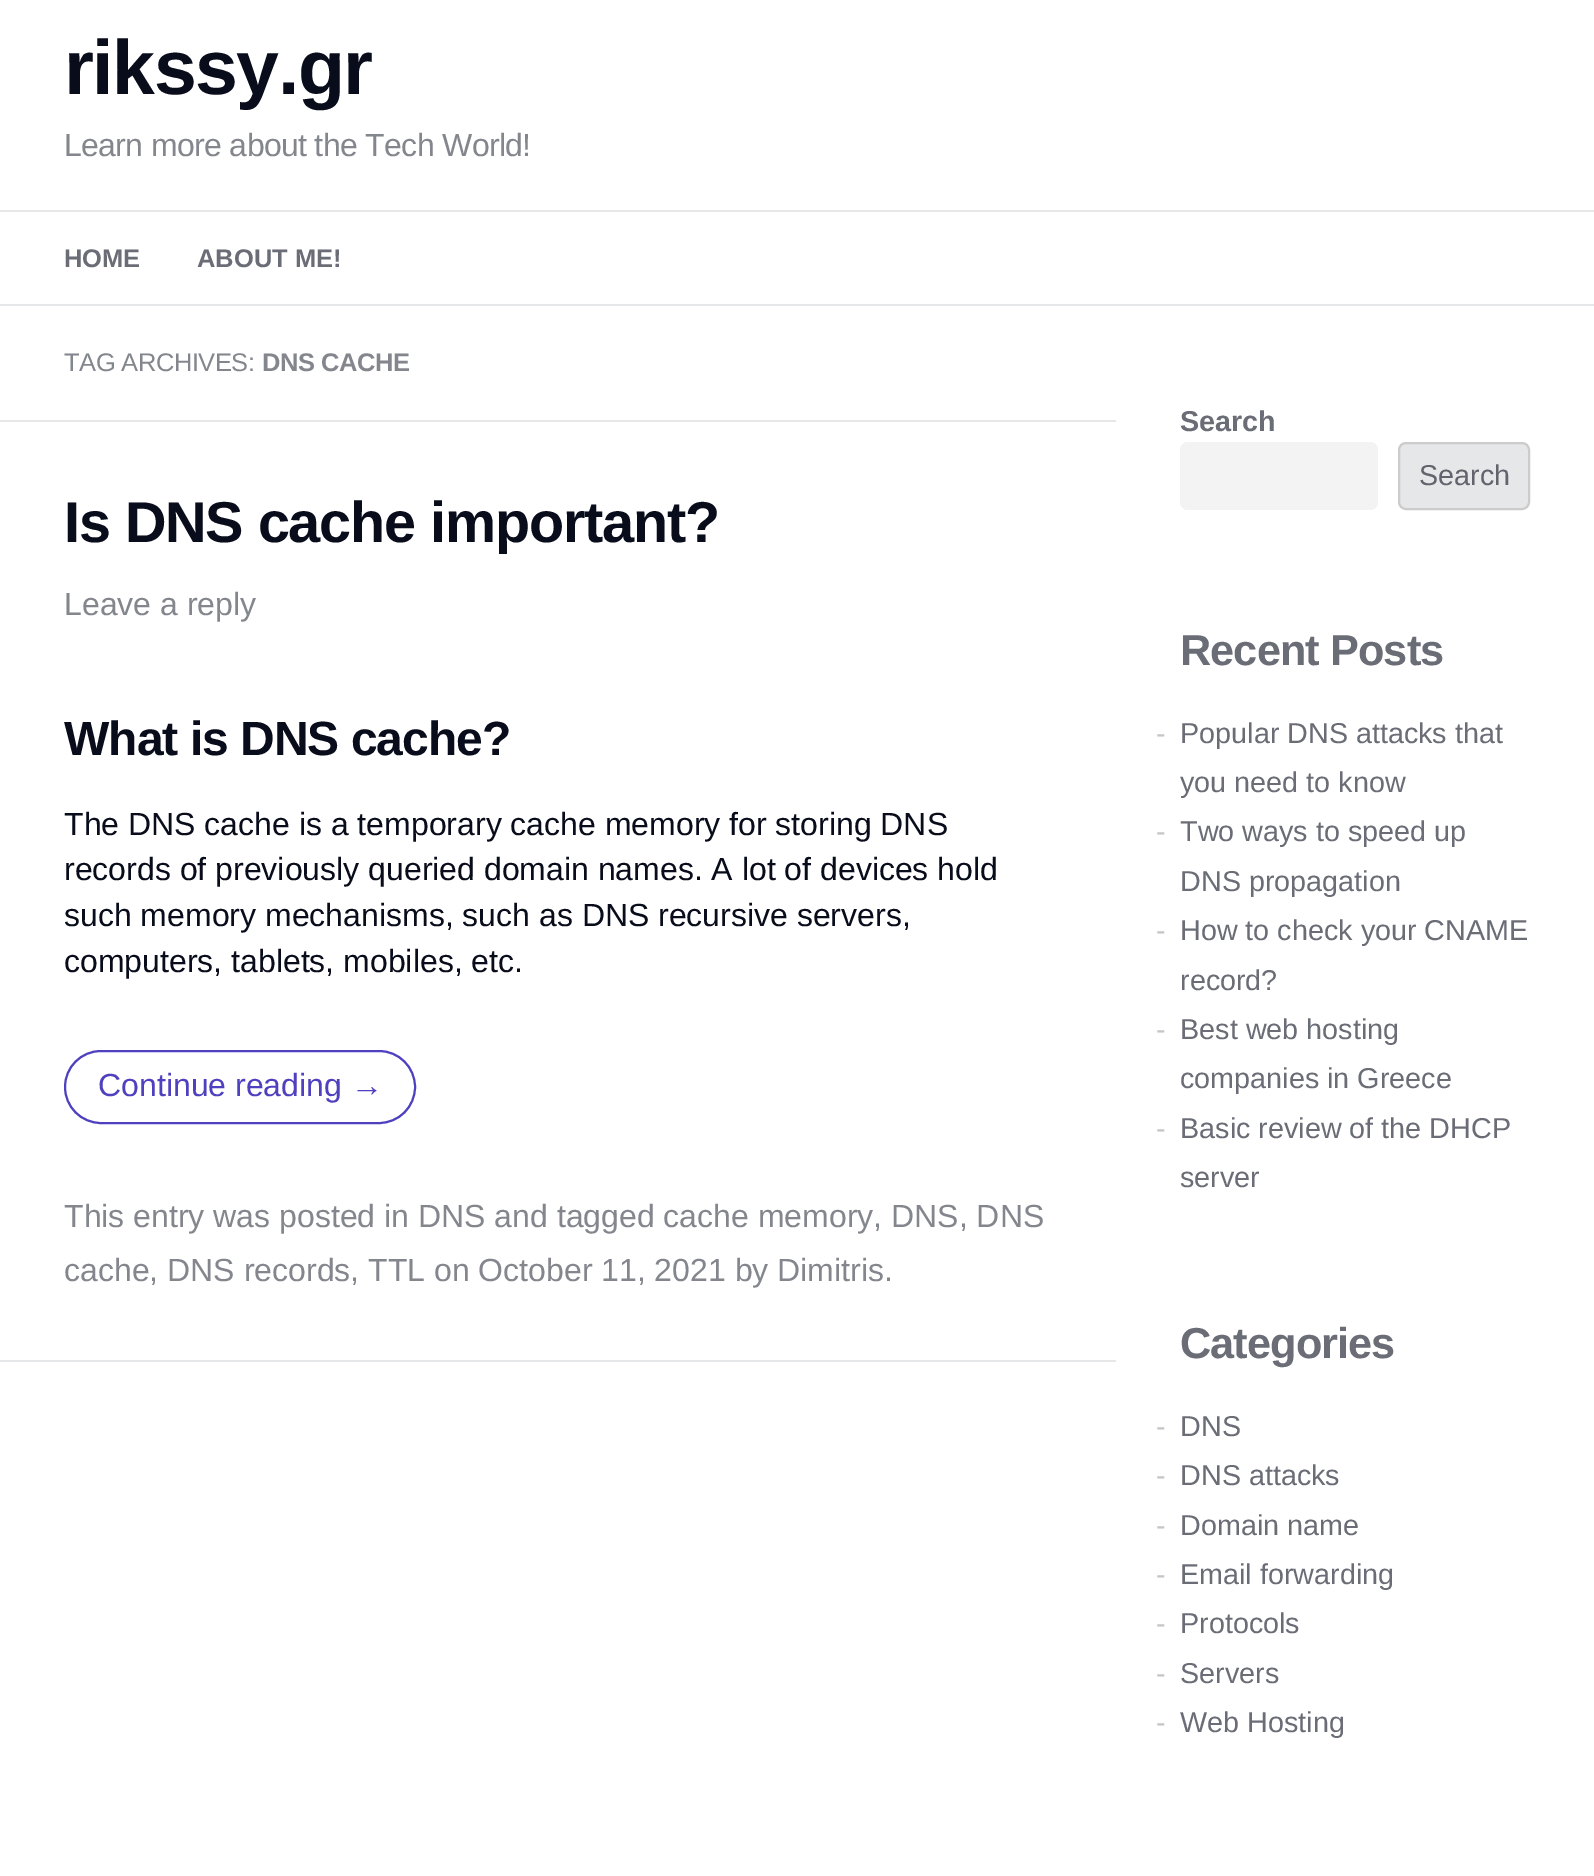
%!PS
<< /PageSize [1594 1876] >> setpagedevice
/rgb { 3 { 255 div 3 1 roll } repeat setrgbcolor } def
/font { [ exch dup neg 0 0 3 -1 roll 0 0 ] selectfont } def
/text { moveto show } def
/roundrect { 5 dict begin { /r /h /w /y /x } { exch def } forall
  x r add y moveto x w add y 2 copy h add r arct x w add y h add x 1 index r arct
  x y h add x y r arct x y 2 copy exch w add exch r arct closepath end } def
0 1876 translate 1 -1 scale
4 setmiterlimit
255 255 255 rgb
0 0 1594 1876 rectfill
230 231 232 rgb
0 210 1594 2 rectfill
0 304 1594 2 rectfill
0 420 1116 2 rectfill
79 64 191 rgb
2 setlinewidth
65 1051 350 72 36 roundrect stroke
230 231 232 rgb
0 1360 1116 2 rectfill
243 243 244 rgb
1180 442 198 68 8 roundrect fill
230 231 232 rgb
1399 443 130 66 7 roundrect gsave fill grestore
204 204 204 rgb
stroke
/LiberationSans-Bold 77 font
8 12 27 rgb
64 94 moveto -1.5 0 (rikssy.gr) ashow
/LiberationSans-Regular 32 font
132 134 141 rgb
64 156 moveto -0.65 0 (Learn more about the Tech World!) ashow
/LiberationSans-Bold 25.5 font
107 109 118 rgb
(HOME) 64 267 text
(ABOUT ME!) 197 267 text
/LiberationSans-Regular 25.5 font
132 134 141 rgb
64 371 moveto -0.5 0 (TAG ARCHIVES:) ashow
/LiberationSans-Bold 25.5 font
262 371 moveto -0.5 0 (DNS CACHE) ashow
/LiberationSans-Bold 57.6 font
8 12 27 rgb
64 542 moveto -1.15 0 (Is DNS cache important?) ashow
/LiberationSans-Regular 32 font
132 134 141 rgb
(Leave a reply) 64 615 text
/LiberationSans-Bold 48 font
8 12 27 rgb
64 755 moveto -1 0 (What is DNS cache?) ashow
/LiberationSans-Regular 32 font
(The DNS cache is a temporary cache memory for storing DNS) 64 835 text
(records of previously queried domain names. A lot of devices hold) 64 880 text
(such memory mechanisms, such as DNS recursive servers,) 64 926 text
(computers, tablets, mobiles, etc.) 64 972 text
79 64 191 rgb
(Continue reading →) 98 1096 text
132 134 141 rgb
(This entry was posted in DNS and tagged cache memory, DNS, DNS) 64 1227 text
(cache, DNS records, TTL on October 11, 2021 by Dimitris.) 64 1281 text
/LiberationSans-Bold 28.75 font
107 109 118 rgb
(Search) 1180 431 text
/LiberationSans-Regular 28.75 font
97 100 109 rgb
(Search) 1419 485 text
/LiberationSans-Bold 43.25 font
107 109 118 rgb
1180 665 moveto -0.9 0 (Recent Posts) ashow
/LiberationSans-Regular 28.75 font
196 197 200 rgb
(-) 1156 743 text
107 109 118 rgb
(Popular DNS attacks that) 1180 743 text
(you need to know) 1180 792 text
196 197 200 rgb
(-) 1156 841 text
107 109 118 rgb
(Two ways to speed up) 1180 841 text
(DNS propagation) 1180 891 text
196 197 200 rgb
(-) 1156 940 text
107 109 118 rgb
(How to check your CNAME) 1180 940 text
(record?) 1180 990 text
196 197 200 rgb
(-) 1156 1039 text
107 109 118 rgb
(Best web hosting) 1180 1039 text
(companies in Greece) 1180 1088 text
196 197 200 rgb
(-) 1156 1138 text
107 109 118 rgb
(Basic review of the DHCP) 1180 1138 text
(server) 1180 1187 text
/LiberationSans-Bold 43.25 font
1180 1358 moveto -0.9 0 (Categories) ashow
/LiberationSans-Regular 28.75 font
196 197 200 rgb
(-) 1156 1436 text
107 109 118 rgb
(DNS) 1180 1436 text
196 197 200 rgb
(-) 1156 1485 text
107 109 118 rgb
(DNS attacks) 1180 1485 text
196 197 200 rgb
(-) 1156 1535 text
107 109 118 rgb
(Domain name) 1180 1535 text
196 197 200 rgb
(-) 1156 1584 text
107 109 118 rgb
(Email forwarding) 1180 1584 text
196 197 200 rgb
(-) 1156 1633 text
107 109 118 rgb
(Protocols) 1180 1633 text
196 197 200 rgb
(-) 1156 1683 text
107 109 118 rgb
(Servers) 1180 1683 text
196 197 200 rgb
(-) 1156 1732 text
107 109 118 rgb
(Web Hosting) 1180 1732 text
showpage
